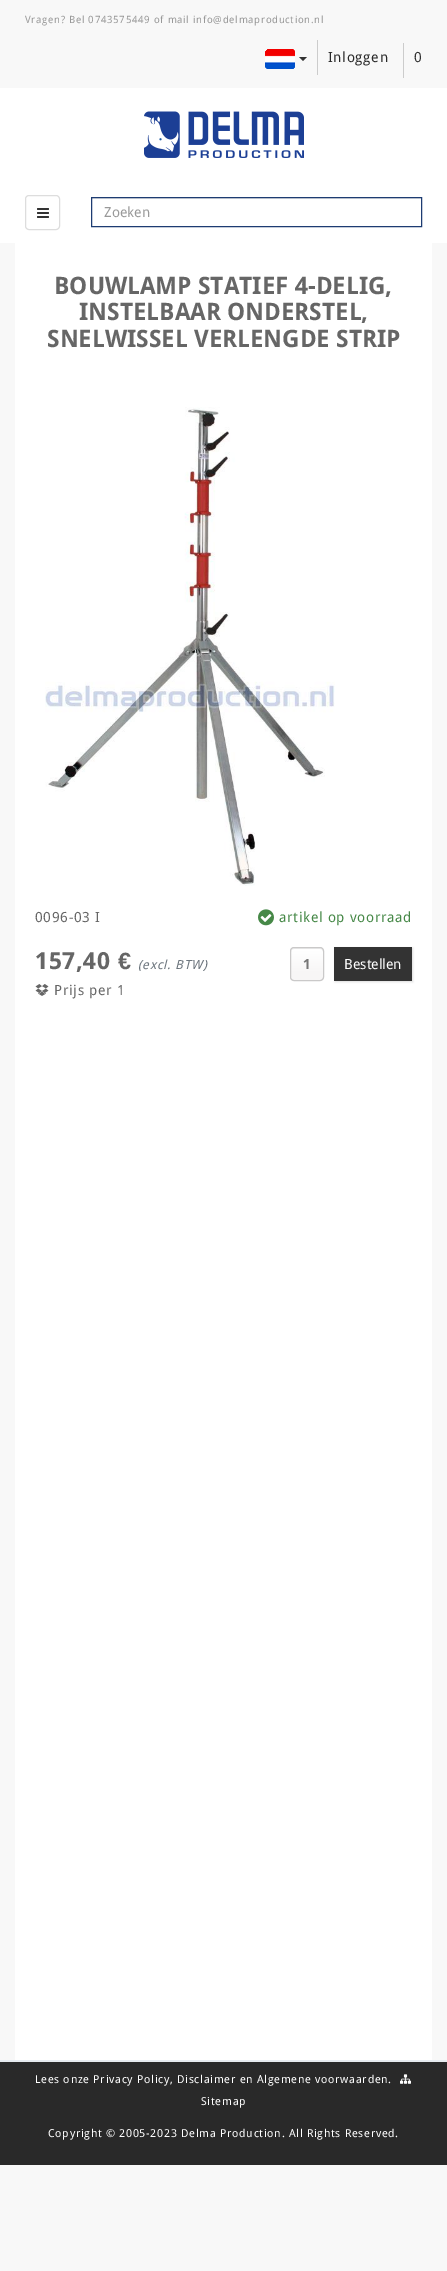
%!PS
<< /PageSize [447 2271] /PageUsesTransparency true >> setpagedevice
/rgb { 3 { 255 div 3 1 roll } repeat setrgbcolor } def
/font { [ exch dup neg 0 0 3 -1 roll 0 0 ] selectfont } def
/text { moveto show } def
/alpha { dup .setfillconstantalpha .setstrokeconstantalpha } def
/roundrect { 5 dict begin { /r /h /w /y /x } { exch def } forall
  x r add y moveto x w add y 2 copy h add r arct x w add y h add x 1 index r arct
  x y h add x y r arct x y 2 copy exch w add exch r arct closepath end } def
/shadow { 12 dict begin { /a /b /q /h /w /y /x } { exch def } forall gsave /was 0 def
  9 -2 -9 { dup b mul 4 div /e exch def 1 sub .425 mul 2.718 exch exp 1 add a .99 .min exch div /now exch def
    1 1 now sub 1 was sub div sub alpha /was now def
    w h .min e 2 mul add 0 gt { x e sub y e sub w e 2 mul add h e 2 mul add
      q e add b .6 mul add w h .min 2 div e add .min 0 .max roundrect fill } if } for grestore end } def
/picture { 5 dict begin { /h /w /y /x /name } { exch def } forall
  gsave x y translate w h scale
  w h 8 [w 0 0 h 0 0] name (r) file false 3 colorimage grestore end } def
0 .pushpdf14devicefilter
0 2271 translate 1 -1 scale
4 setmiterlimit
248 248 248 rgb
0 0 447 2271 rectfill
204 204 204 rgb
317 40 1 35 rectfill
(img_01.rgb) 265 49 30 20 picture
51 51 51 rgb
299 57 moveto 8 0 rlineto -4 4 rlineto closepath fill
204 204 204 rgb
403 43 1 35 rectfill
255 255 255 rgb
0 88 447 155 rectfill
(img_02.rgb) 144 111 160 47 picture
221 221 221 rgb
25.5 195.5 34 34 3.5 roundrect stroke
(img_03.rgb) 37 208 12 10 picture
236 236 236 rgb
92 198 329 1 rectfill
29 60 114 rgb
91.5 197.5 330 29 rectstroke
255 255 255 rgb
15 243 417 1817 rectfill
(img_04.rgb) 45 407 290 479 picture
(img_05.rgb) 258 909 16 17 picture
(img_06.rgb) 35 984 14 12 picture
(img_07.rgb) 290 948 34 33 picture
236 236 236 rgb
294 949 moveto 26 0 rlineto 2 0 3 1 3 3 rcurveto 0 -5 -3.5 -4 -7.5 -4 rcurveto -17 0 rlineto -4 0 -7.5 -1 -7.5 4 rcurveto 0 -2 1 -3 3 -3 rcurveto closepath fill
202 201 201 rgb
290.5 947.5 33 33 3.5 roundrect stroke
221 221 221 rgb
335 948 78 34 0 1 1 shadow
51 51 51 rgb
334 947 78 34 rectfill
41 41 41 rgb
0 2062 447 103 rectfill
230 235 239 rgb
0 2060 447 2 rectfill
(img_08.rgb) 400 2074 11 10 picture
/DroidSans-Regular 10 font
153 153 153 rgb
25 23 moveto 0.7 0 (Vragen? Bel 0743575449 of mail info@delmaproduction.nl) ashow
/DroidSans-Regular 14 font
41 41 41 rgb
328 62 moveto 0.7 0 (Inloggen) ashow
51 51 51 rgb
414 62 moveto 0.7 0 (0) ashow
153 153 153 rgb
(Zoeken) 104 217 text
/DroidSans-Bold 24 font
102 102 102 rgb
(BOUWLAMP STATIEF 4-DELIG,) 54 294 text
(INSTELBAAR ONDERSTEL,) 79 320 text
(SNELWISSEL VERLENGDE STRIP) 47 347 text
/DroidSans-Regular 14 font
35 922 moveto 0.7 0 (0096-03 I) ashow
70 136 71 rgb
279 922 moveto 0.7 0 (artikel op voorraad) ashow
/DroidSans-Bold 23.5 font
102 102 102 rgb
35 969 moveto 0.7 0 (157,40) ashow
/LiberationSans-Bold 23.5 font
118 969 moveto 0.7 0 (€) ashow
/DroidSans-Italic 12.5 font
108 117 125 rgb
138 969 moveto 0.7 0 (\(excl. BTW\)) ashow
/DroidSans-Regular 14 font
102 102 102 rgb
54 995 moveto 0.7 0 (Prijs per 1) ashow
/DroidSans-Bold 14 font
119 119 119 rgb
(1) 303 969 text
/DroidSans-Regular 14 font
255 255 255 rgb
(Bestellen) 344 969 text
/DroidSans-Regular 11 font
35 2083 moveto 0.7 0 (Lees onze Privacy Policy, Disclaimer en Algemene voorwaarden.) ashow
201 2105 moveto 0.7 0 (Sitemap) ashow
48 2137 moveto 0.7 0 (Copyright © 2005-2023 Delma Production. All Rights Reserved.) ashow
.poppdf14devicefilter showpage
